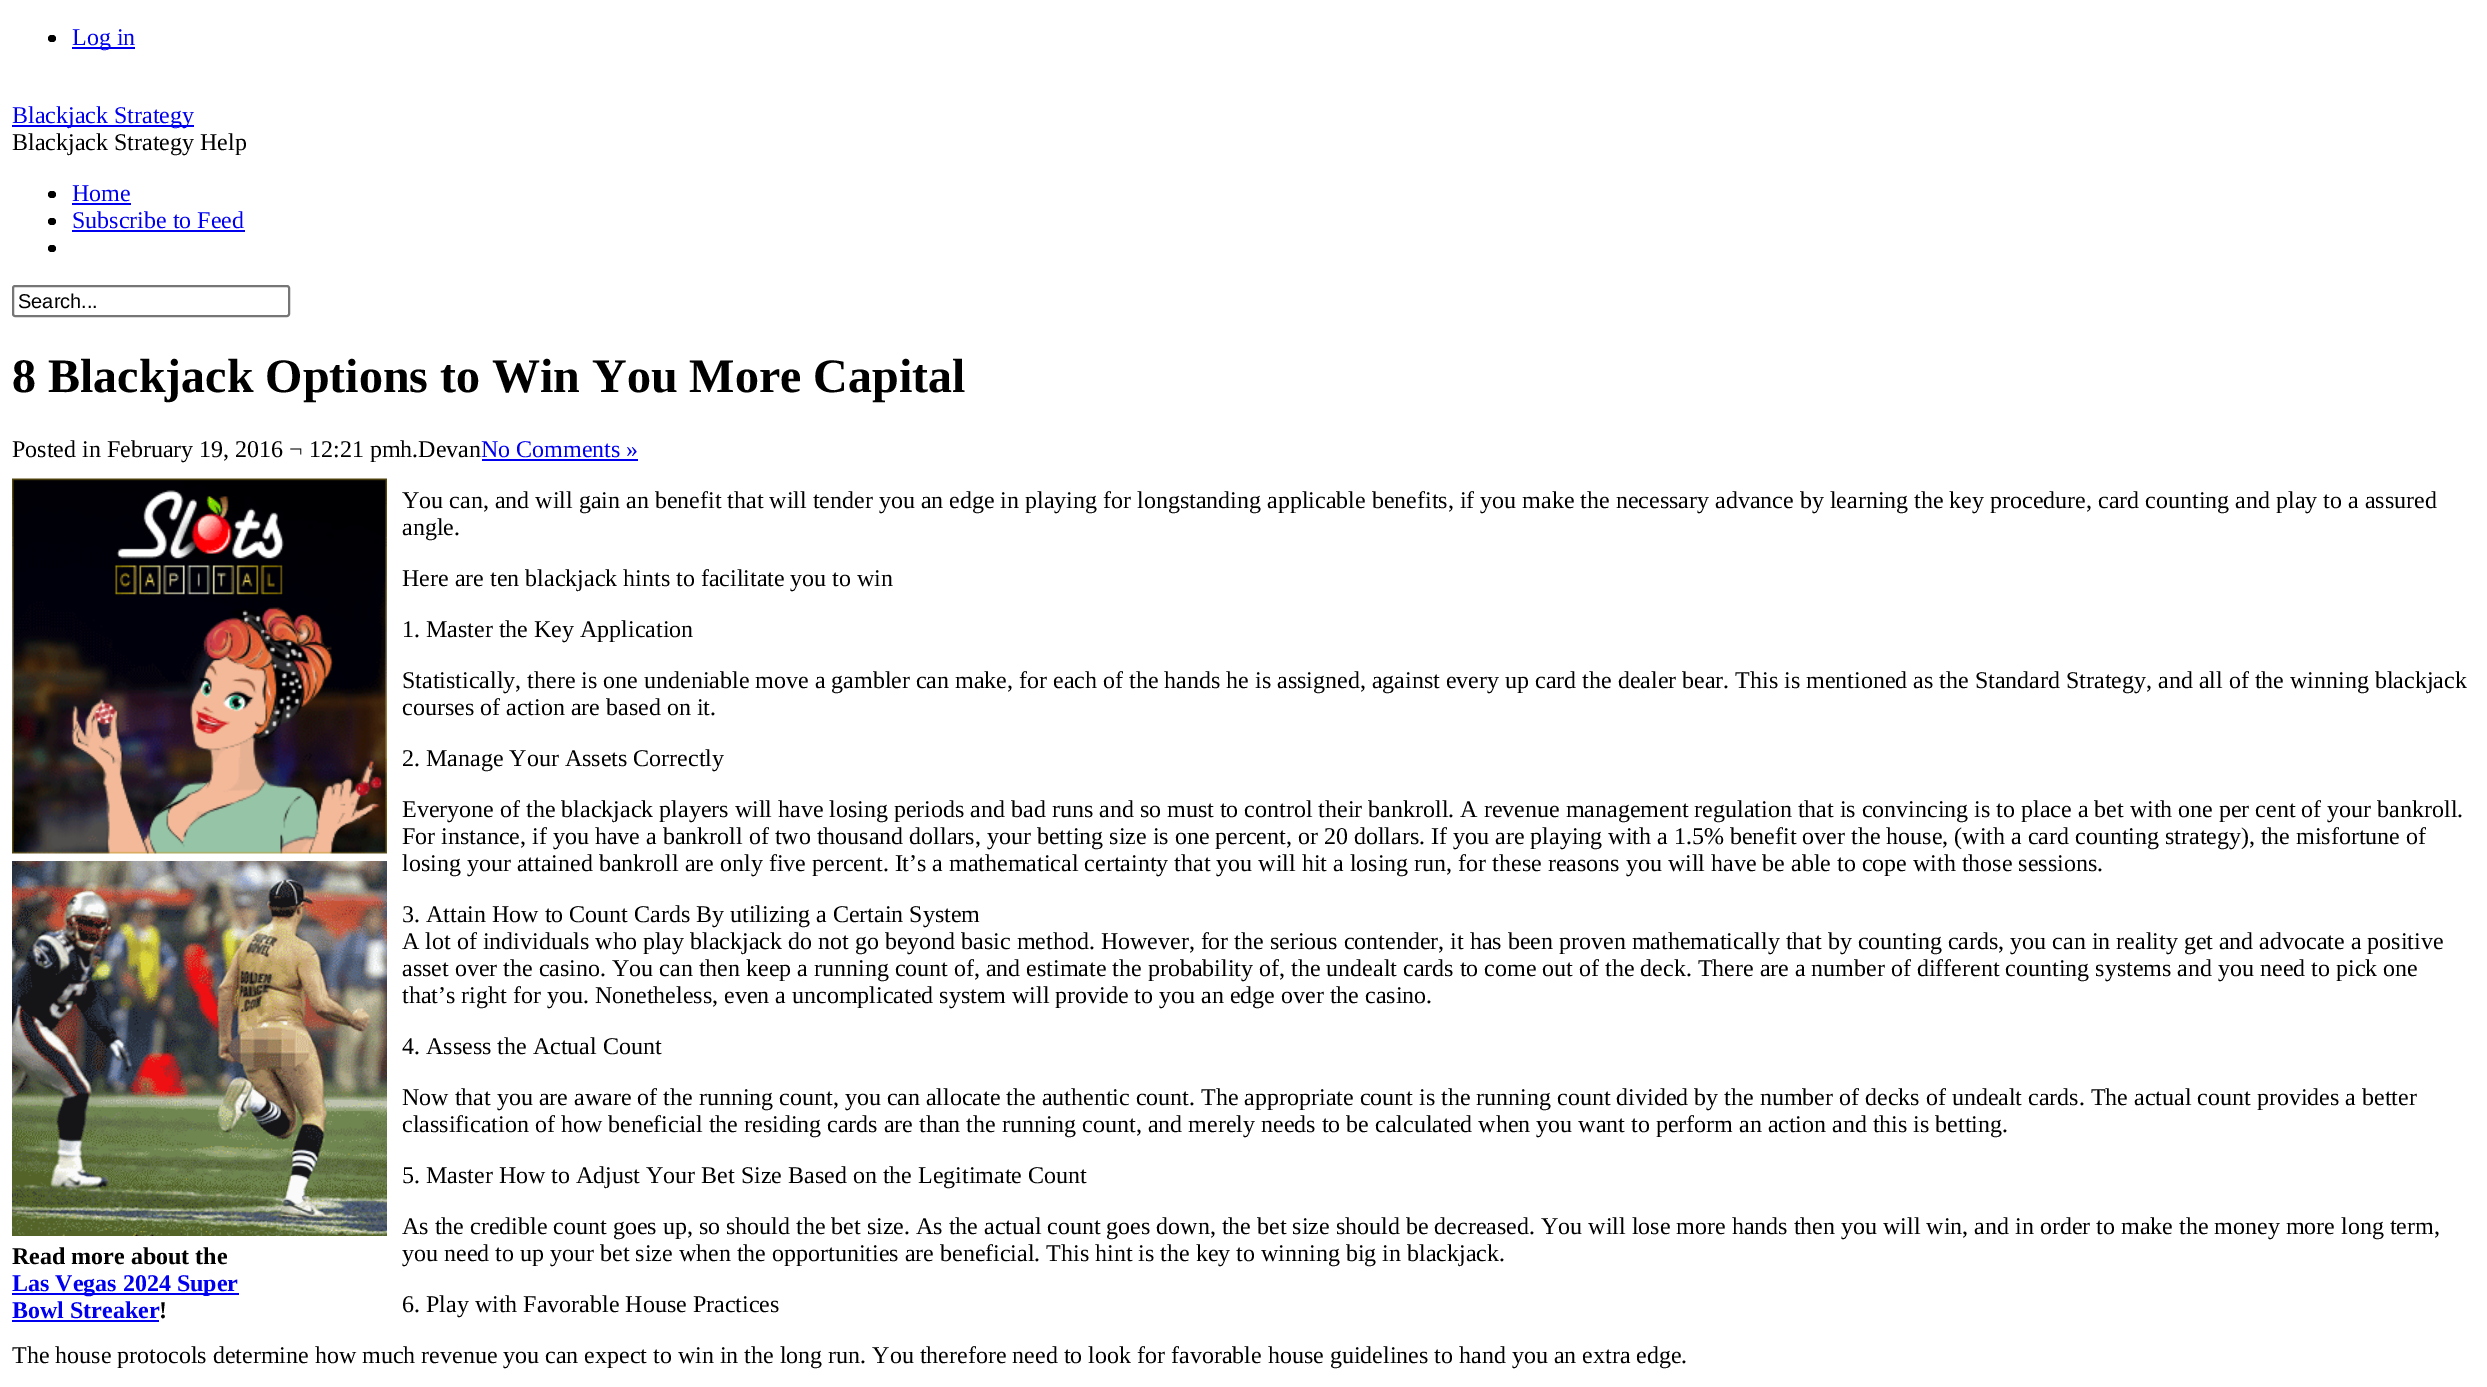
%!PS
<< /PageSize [2487 1387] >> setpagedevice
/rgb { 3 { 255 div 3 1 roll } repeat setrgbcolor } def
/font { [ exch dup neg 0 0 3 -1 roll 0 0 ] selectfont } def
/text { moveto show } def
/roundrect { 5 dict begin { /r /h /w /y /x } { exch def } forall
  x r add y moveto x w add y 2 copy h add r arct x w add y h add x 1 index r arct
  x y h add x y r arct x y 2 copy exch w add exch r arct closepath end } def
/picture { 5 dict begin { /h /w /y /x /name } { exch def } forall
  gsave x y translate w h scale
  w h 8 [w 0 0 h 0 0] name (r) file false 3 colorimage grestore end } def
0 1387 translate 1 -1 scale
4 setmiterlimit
255 255 255 rgb
0 0 2487 1387 rectfill
0 0 0 rgb
48 35 8 7 3.5 roundrect fill
0 0 238 rgb
72 47 63 2 rectfill
12 125 182 2 rectfill
0 0 0 rgb
48 191 8 7 3.5 roundrect fill
0 0 238 rgb
72 203 59 2 rectfill
0 0 0 rgb
48 218 8 7 3.5 roundrect fill
0 0 238 rgb
72 230 173 2 rectfill
0 0 0 rgb
48 245 8 7 3.5 roundrect fill
118 118 118 rgb
2 setlinewidth
13 286 276 30 2 roundrect stroke
0 0 238 rgb
482 459 156 2 rectfill
(img_01.rgb) 12 478 375 376 picture
(img_02.rgb) 12 861 375 375 picture
12 1293 227 2 rectfill
12 1320 147 2 rectfill
/LiberationSerif-Regular 24 font
(Log in) 72 45 text
(Blackjack Strategy) 12 123 text
0 0 0 rgb
(Blackjack Strategy Help) 12 150 text
0 0 238 rgb
(Home) 72 201 text
(Subscribe to Feed) 72 228 text
/LiberationSans-Regular 20 font
0 0 0 rgb
(Search...) 18 308 text
/LiberationSerif-Bold 48 font
(8 Blackjack Options to Win You More Capital) 12 392 text
/LiberationSerif-Regular 24 font
(Posted in February 19, 2016 ¬ 12:21 pmh.Devan) 12 457 text
0 0 238 rgb
(No Comments ») 481 457 text
0 0 0 rgb
(You can, and will gain an benefit that will tender you an edge in playing for longstanding applicable benefits, if you make the necessary advance by learning the key procedure, card counting and play to a assured) 402 508 text
(angle.) 402 535 text
(Here are ten blackjack hints to facilitate you to win) 402 586 text
(1. Master the Key Application) 402 637 text
(Statistically, there is one undeniable move a gambler can make, for each of the hands he is assigned, against every up card the dealer bear. This is mentioned as the Standard Strategy, and all of the winning blackjack) 402 688 text
(courses of action are based on it.) 402 715 text
(2. Manage Your Assets Correctly) 402 766 text
(Everyone of the blackjack players will have losing periods and bad runs and so must to control their bankroll. A revenue management regulation that is convincing is to place a bet with one per cent of your bankroll.) 402 817 text
(For instance, if you have a bankroll of two thousand dollars, your betting size is one percent, or 20 dollars. If you are playing with a 1.5% benefit over the house, \(with a card counting strategy\), the misfortune of) 402 844 text
(losing your attained bankroll are only five percent. It’s a mathematical certainty that you will hit a losing run, for these reasons you will have be able to cope with those sessions.) 402 871 text
(3. Attain How to Count Cards By utilizing a Certain System) 402 922 text
(A lot of individuals who play blackjack do not go beyond basic method. However, for the serious contender, it has been proven mathematically that by counting cards, you can in reality get and advocate a positive) 402 949 text
(asset over the casino. You can then keep a running count of, and estimate the probability of, the undealt cards to come out of the deck. There are a number of different counting systems and you need to pick one) 402 976 text
(that’s right for you. Nonetheless, even a uncomplicated system will provide to you an edge over the casino.) 402 1003 text
(4. Assess the Actual Count) 402 1054 text
(Now that you are aware of the running count, you can allocate the authentic count. The appropriate count is the running count divided by the number of decks of undealt cards. The actual count provides a better) 402 1105 text
(classification of how beneficial the residing cards are than the running count, and merely needs to be calculated when you want to perform an action and this is betting.) 402 1132 text
(5. Master How to Adjust Your Bet Size Based on the Legitimate Count) 402 1183 text
(As the credible count goes up, so should the bet size. As the actual count goes down, the bet size should be decreased. You will lose more hands then you will win, and in order to make the money more long term,) 402 1234 text
(you need to up your bet size when the opportunities are beneficial. This hint is the key to winning big in blackjack.) 402 1261 text
/LiberationSerif-Bold 24 font
(Read more about the) 12 1264 text
0 0 238 rgb
(Las Vegas 2024 Super) 12 1291 text
(Bowl Streaker) 12 1318 text
0 0 0 rgb
(!) 159 1318 text
/LiberationSerif-Regular 24 font
(6. Play with Favorable House Practices) 402 1312 text
(The house protocols determine how much revenue you can expect to win in the long run. You therefore need to look for favorable house guidelines to hand you an extra edge.) 12 1363 text
showpage
